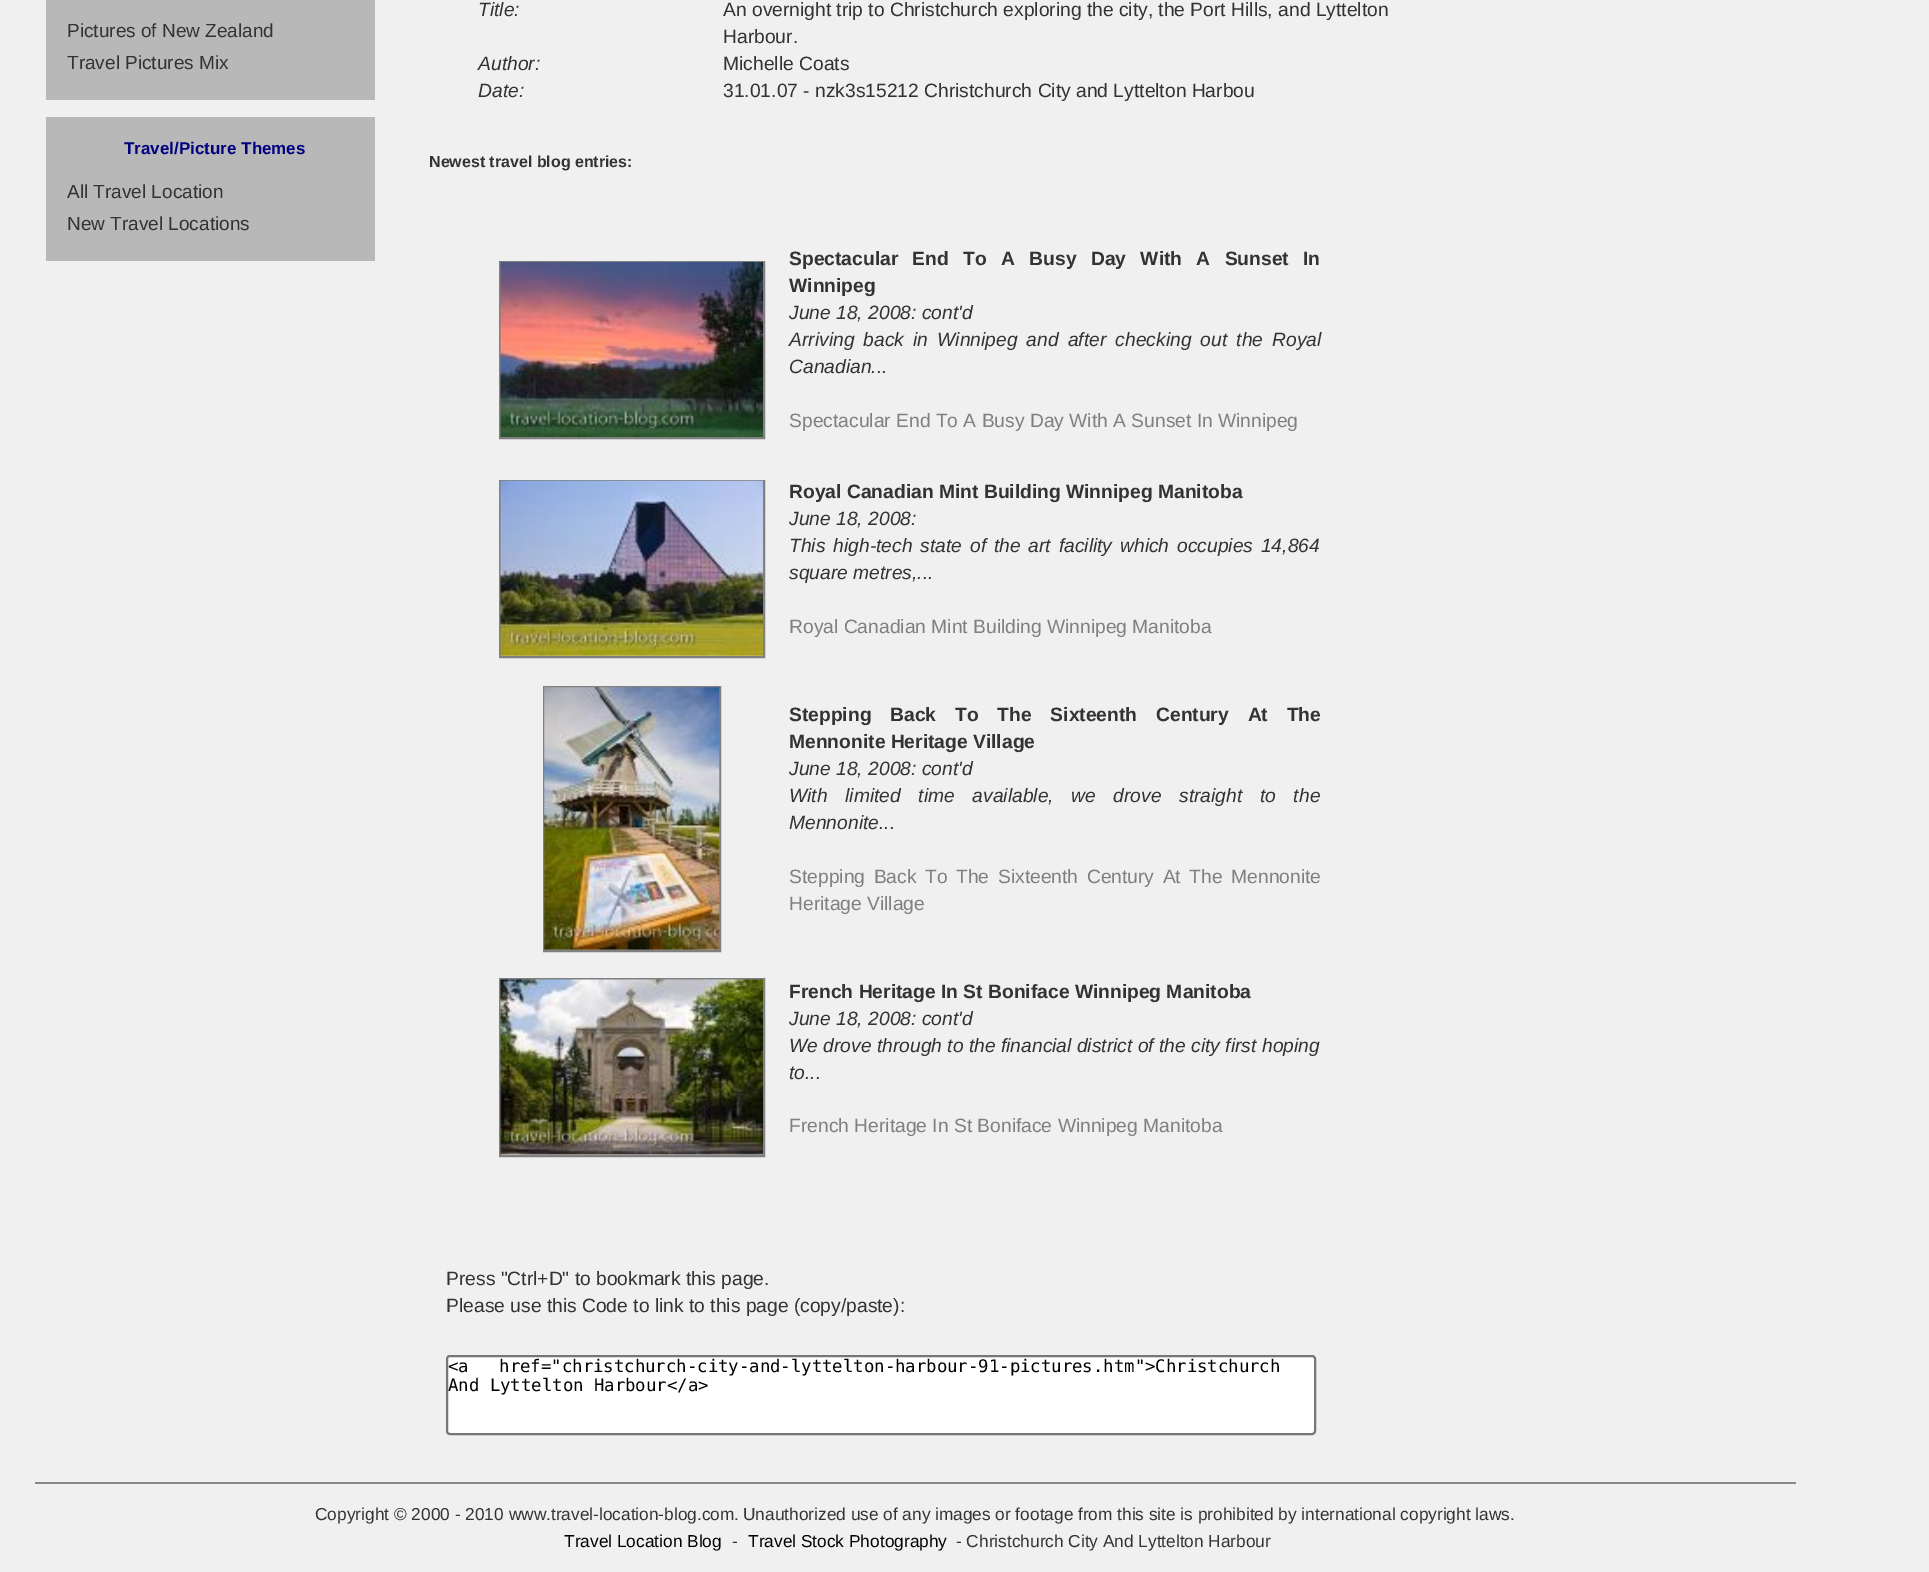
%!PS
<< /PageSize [1929 1572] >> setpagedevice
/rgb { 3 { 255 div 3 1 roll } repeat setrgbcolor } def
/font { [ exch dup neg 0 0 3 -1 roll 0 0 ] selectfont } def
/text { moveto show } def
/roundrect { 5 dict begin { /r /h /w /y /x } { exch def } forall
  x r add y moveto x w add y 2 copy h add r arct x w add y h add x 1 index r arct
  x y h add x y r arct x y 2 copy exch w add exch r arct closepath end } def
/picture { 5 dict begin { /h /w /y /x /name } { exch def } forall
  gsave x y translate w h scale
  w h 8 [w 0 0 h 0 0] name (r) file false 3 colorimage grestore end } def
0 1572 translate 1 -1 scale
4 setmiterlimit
240 240 240 rgb
0 0 1929 1572 rectfill
184 184 184 rgb
46 0 329 100 rectfill
46 117 329 144 rectfill
128 128 128 rgb
2 setlinewidth
500 262 264 176 rectstroke
(img_01.rgb) 500 262 263 175 picture
500 481 264 176 rectstroke
(img_02.rgb) 500 480 263 176 picture
544 687 176 264 rectstroke
(img_03.rgb) 544 687 176 263 picture
500 979 264 177 rectstroke
(img_04.rgb) 500 979 263 176 picture
255 255 255 rgb
447 1356 868 78 3 roundrect gsave fill grestore
118 118 118 rgb
stroke
136 136 136 rgb
35 1482 1761 2 rectfill
/LiberationSans-Regular 19 font
51 51 51 rgb
(Pictures of New Zealand) 67 37 text
(Travel Pictures Mix) 67 69 text
/LiberationSans-Bold 17 font
0 0 128 rgb
(Travel/Picture Themes) 124 154 text
/LiberationSans-Regular 19 font
51 51 51 rgb
(All Travel Location) 67 198 text
(New Travel Locations) 67 230 text
/LiberationSans-Italic 19.25 font
(Title:) 478 16 text
/LiberationSans-Regular 19.25 font
(An overnight trip to Christchurch exploring the city, the Port Hills, and Lyttelton) 723 16 text
(Harbour.) 723 43 text
/LiberationSans-Italic 19.25 font
(Author:) 478 70 text
/LiberationSans-Regular 19.25 font
(Michelle Coats) 723 70 text
/LiberationSans-Italic 19.25 font
(Date:) 478 97 text
/LiberationSans-Regular 19.25 font
(31.01.07 - nzk3s15212 Christchurch City and Lyttelton Harbou) 723 97 text
/LiberationSans-Bold 16 font
(Newest travel blog entries:) 429 167 text
/LiberationSans-Bold 19.25 font
789 265 moveto 9 0 32 (Spectacular End To A Busy Day With A Sunset In) widthshow
(Winnipeg) 789 292 text
/LiberationSans-Italic 19.25 font
(June 18, 2008: cont'd) 789 319 text
789 346 moveto 3.75 0 32 (Arriving back in Winnipeg and after checking out the Royal) widthshow
(Canadian...) 789 373 text
/LiberationSans-Regular 19.25 font
128 128 128 rgb
(Spectacular End To A Busy Day With A Sunset In Winnipeg) 789 427 text
/LiberationSans-Bold 19.25 font
51 51 51 rgb
(Royal Canadian Mint Building Winnipeg Manitoba) 789 498 text
/LiberationSans-Italic 19.25 font
(June 18, 2008:) 789 525 text
789 552 moveto 2.5 0 32 (This high-tech state of the art facility which occupies 14,864) widthshow
(square metres,...) 789 579 text
/LiberationSans-Regular 19.25 font
128 128 128 rgb
(Royal Canadian Mint Building Winnipeg Manitoba) 789 633 text
/LiberationSans-Bold 19.25 font
51 51 51 rgb
789 721 moveto 13.5 0 32 (Stepping Back To The Sixteenth Century At The) widthshow
(Mennonite Heritage Village) 789 748 text
/LiberationSans-Italic 19.25 font
(June 18, 2008: cont'd) 789 775 text
789 802 moveto 12.25 0 32 (With limited time available, we drove straight to the) widthshow
(Mennonite...) 789 829 text
/LiberationSans-Regular 19.25 font
128 128 128 rgb
789 883 moveto 3.25 0 32 (Stepping Back To The Sixteenth Century At The Mennonite) widthshow
(Heritage Village) 789 910 text
/LiberationSans-Bold 19.25 font
51 51 51 rgb
(French Heritage In St Boniface Winnipeg Manitoba) 789 998 text
/LiberationSans-Italic 19.25 font
(June 18, 2008: cont'd) 789 1025 text
(We drove through to the financial district of the city first hoping) 789 1052 text
(to...) 789 1079 text
/LiberationSans-Regular 19.25 font
128 128 128 rgb
(French Heritage In St Boniface Winnipeg Manitoba) 789 1132 text
51 51 51 rgb
(Press "Ctrl+D" to bookmark this page.) 446 1285 text
(Please use this Code to link to this page \(copy/paste\):) 446 1312 text
/DejaVuSansMono-Regular 17.3 font
0 0 0 rgb
448 1372 moveto 20 0 32 (<a href="christchurch-city-and-lyttelton-harbour-91-pictures.htm">Christchurch) widthshow
(And Lyttelton Harbour</a>) 448 1391 text
/LiberationSans-Regular 17.3 font
51 51 51 rgb
(Copyright © 2000 - 2010 www.travel-location-blog.com.) 315 1520 text
743 1520 moveto -0.1 0 32 (Unauthorized use of any images or footage from this site is prohibited by international copyright laws.) widthshow
0 0 0 rgb
(Travel Location Blog) 564 1547 text
51 51 51 rgb
(-) 732 1547 text
0 0 0 rgb
(Travel Stock Photography) 748 1547 text
51 51 51 rgb
956 1547 moveto -0.1 0 32 (- Christchurch City And Lyttelton Harbour) widthshow
showpage
